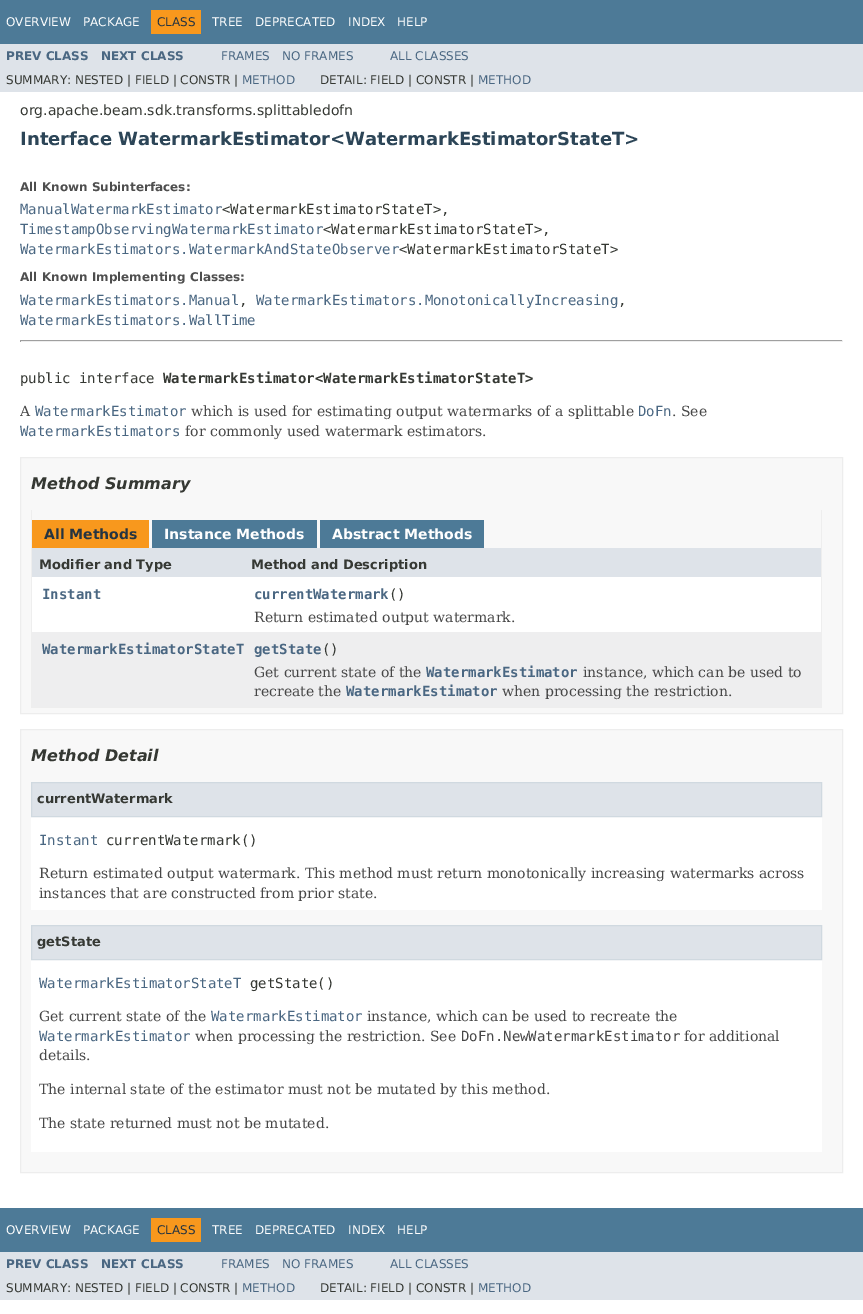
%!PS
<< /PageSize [863 1314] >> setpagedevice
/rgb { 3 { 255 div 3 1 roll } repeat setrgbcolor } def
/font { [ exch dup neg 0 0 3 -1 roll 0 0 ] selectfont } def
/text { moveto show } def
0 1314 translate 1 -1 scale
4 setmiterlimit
255 255 255 rgb
0 0 863 1314 rectfill
77 122 151 rgb
0 0 863 44 rectfill
248 152 29 rgb
151 10 50 24 rectfill
222 227 233 rgb
0 44 863 48 rectfill
159 159 159 rgb
20 340 823 1 rectfill
238 238 238 rgb
842 340 1 2 rectfill
20 341 823 1 rectfill
159 159 159 rgb
20 340 1 2 rectfill
248 248 248 rgb
20.5 457.5 moveto 822 0 rlineto 0 256 rlineto -822 0 rlineto closepath gsave fill grestore
237 237 237 rgb
stroke
238 238 238 rgb
821 510 1 198 rectfill
31 707 791 1 rectfill
31 510 1 198 rectfill
248 152 29 rgb
32 520 117 28 rectfill
77 122 151 rgb
152 520 165 28 rectfill
320 520 164 28 rectfill
222 227 233 rgb
32 548 789 29 rectfill
255 255 255 rgb
32 577 789 55 rectfill
238 238 239 rgb
32 632 789 75 rectfill
248 248 248 rgb
20.5 729.5 moveto 822 0 rlineto 0 443 rlineto -822 0 rlineto closepath gsave fill grestore
237 237 237 rgb
stroke
255 255 255 rgb
31 817 791 93 rectfill
222 227 233 rgb
31.5 782.5 moveto 790 0 rlineto 0 34 rlineto -790 0 rlineto closepath gsave fill grestore
208 217 224 rgb
stroke
255 255 255 rgb
31 960 791 192 rectfill
222 227 233 rgb
31.5 925.5 moveto 790 0 rlineto 0 34 rlineto -790 0 rlineto closepath gsave fill grestore
208 217 224 rgb
stroke
77 122 151 rgb
0 1208 863 44 rectfill
248 152 29 rgb
151 1218 50 24 rectfill
222 227 233 rgb
0 1252 863 48 rectfill
/DejaVuSans-Regular 12 font
255 255 255 rgb
(OVERVIEW) 6 26 text
(PACKAGE) 83 26 text
37 52 65 rgb
(CLASS) 157 26 text
255 255 255 rgb
(TREE) 212 26 text
(DEPRECATED) 255 26 text
(INDEX) 348 26 text
(HELP) 397 26 text
/DejaVuSans-Bold 12 font
74 103 130 rgb
(PREV CLASS) 6 60 text
(NEXT CLASS) 101 60 text
/DejaVuSans-Regular 12 font
(FRAMES) 221 60 text
(NO FRAMES) 282 60 text
(ALL CLASSES) 390 60 text
53 56 51 rgb
(SUMMARY: NESTED | FIELD | CONSTR |) 6 84 text
74 103 130 rgb
(METHOD) 242 84 text
53 56 51 rgb
(DETAIL: FIELD | CONSTR |) 320 84 text
74 103 130 rgb
(METHOD) 478 84 text
/DejaVuSans-Regular 14 font
53 56 51 rgb
(org.apache.beam.sdk.transforms.splittabledofn) 20 115 text
/DejaVuSans-Bold 18 font
44 69 87 rgb
(Interface WatermarkEstimator<WatermarkEstimatorStateT>) 20 145 text
/DejaVuSans-Bold 12 font
78 78 78 rgb
(All Known Subinterfaces:) 20 191 text
/DejaVuSansMono-Regular 14 font
74 103 130 rgb
(ManualWatermarkEstimator) 20 214 text
53 56 51 rgb
(<WatermarkEstimatorStateT>,) 222 214 text
74 103 130 rgb
(TimestampObservingWatermarkEstimator) 20 234 text
53 56 51 rgb
(<WatermarkEstimatorStateT>,) 323 234 text
74 103 130 rgb
(WatermarkEstimators.WatermarkAndStateObserver) 20 254 text
53 56 51 rgb
(<WatermarkEstimatorStateT>) 399 254 text
/DejaVuSans-Bold 12 font
78 78 78 rgb
(All Known Implementing Classes:) 20 281 text
/DejaVuSansMono-Regular 14 font
74 103 130 rgb
(WatermarkEstimators.Manual) 20 305 text
53 56 51 rgb
(,) 239 305 text
74 103 130 rgb
(WatermarkEstimators.MonotonicallyIncreasing) 256 305 text
53 56 51 rgb
(,) 618 305 text
74 103 130 rgb
(WatermarkEstimators.WallTime) 20 325 text
53 56 51 rgb
(public interface) 20 383 text
/DejaVuSansMono-Bold 14 font
(WatermarkEstimator<WatermarkEstimatorStateT>) 163 383 text
/DejaVuSerif-Regular 14 font
71 71 71 rgb
(A) 20 416 text
/DejaVuSansMono-Regular 14 font
74 103 130 rgb
(WatermarkEstimator) 35 416 text
/DejaVuSerif-Regular 14 font
71 71 71 rgb
(which is used for estimating output watermarks of a splittable) 191 416 text
/DejaVuSansMono-Regular 14 font
74 103 130 rgb
(DoFn) 638 416 text
/DejaVuSerif-Regular 14 font
71 71 71 rgb
(. See) 672 416 text
/DejaVuSansMono-Regular 14 font
74 103 130 rgb
(WatermarkEstimators) 20 436 text
/DejaVuSerif-Regular 14 font
71 71 71 rgb
(for commonly used watermark estimators.) 185 436 text
/DejaVuSans-BoldItalic 16 font
53 56 51 rgb
(Method Summary) 31 489 text
/DejaVuSans-Bold 14 font
37 52 65 rgb
(All Methods) 44 539 text
255 255 255 rgb
(Instance Methods) 164 539 text
(Abstract Methods) 332 539 text
/DejaVuSans-Bold 13 font
53 56 51 rgb
(Modifier and Type) 39 569 text
(Method and Description) 251 569 text
/DejaVuSansMono-Bold 14 font
74 103 130 rgb
(Instant) 42 599 text
(currentWatermark) 254 599 text
/DejaVuSansMono-Regular 14 font
53 56 51 rgb
(\(\)) 389 599 text
/DejaVuSerif-Regular 14 font
71 71 71 rgb
(Return estimated output watermark.) 254 622 text
/DejaVuSansMono-Bold 14 font
74 103 130 rgb
(WatermarkEstimatorStateT) 42 654 text
(getState) 254 654 text
/DejaVuSansMono-Regular 14 font
53 56 51 rgb
(\(\)) 322 654 text
/DejaVuSerif-Regular 14 font
71 71 71 rgb
(Get current state of the) 254 677 text
/DejaVuSansMono-Bold 14 font
74 103 130 rgb
(WatermarkEstimator) 426 677 text
/DejaVuSerif-Regular 14 font
71 71 71 rgb
(instance, which can be used to) 583 677 text
(recreate the) 254 696 text
/DejaVuSansMono-Bold 14 font
74 103 130 rgb
(WatermarkEstimator) 346 696 text
/DejaVuSerif-Regular 14 font
71 71 71 rgb
(when processing the restriction.) 502 696 text
/DejaVuSans-BoldItalic 16 font
53 56 51 rgb
(Method Detail) 31 761 text
/DejaVuSans-Bold 13 font
(currentWatermark) 37 803 text
/DejaVuSansMono-Regular 14 font
74 103 130 rgb
(Instant) 39 845 text
53 56 51 rgb
(currentWatermark\(\)) 106 845 text
/DejaVuSerif-Regular 14 font
71 71 71 rgb
(Return estimated output watermark. This method must return monotonically increasing watermarks across) 39 878 text
(instances that are constructed from prior state.) 39 898 text
/DejaVuSans-Bold 13 font
53 56 51 rgb
(getState) 37 946 text
/DejaVuSansMono-Regular 14 font
74 103 130 rgb
(WatermarkEstimatorStateT) 39 988 text
53 56 51 rgb
(getState\(\)) 250 988 text
/DejaVuSerif-Regular 14 font
71 71 71 rgb
(Get current state of the) 39 1021 text
/DejaVuSansMono-Regular 14 font
74 103 130 rgb
(WatermarkEstimator) 211 1021 text
/DejaVuSerif-Regular 14 font
71 71 71 rgb
(instance, which can be used to recreate the) 367 1021 text
/DejaVuSansMono-Regular 14 font
74 103 130 rgb
(WatermarkEstimator) 39 1041 text
/DejaVuSerif-Regular 14 font
71 71 71 rgb
(when processing the restriction. See) 195 1041 text
/DejaVuSansMono-Regular 14 font
(DoFn.NewWatermarkEstimator) 461 1041 text
/DejaVuSerif-Regular 14 font
(for additional) 684 1041 text
(details.) 39 1060 text
(The internal state of the estimator must not be mutated by this method.) 39 1094 text
(The state returned must not be mutated.) 39 1128 text
/DejaVuSans-Regular 12 font
255 255 255 rgb
(OVERVIEW) 6 1234 text
(PACKAGE) 83 1234 text
37 52 65 rgb
(CLASS) 157 1234 text
255 255 255 rgb
(TREE) 212 1234 text
(DEPRECATED) 255 1234 text
(INDEX) 348 1234 text
(HELP) 397 1234 text
/DejaVuSans-Bold 12 font
74 103 130 rgb
(PREV CLASS) 6 1268 text
(NEXT CLASS) 101 1268 text
/DejaVuSans-Regular 12 font
(FRAMES) 221 1268 text
(NO FRAMES) 282 1268 text
(ALL CLASSES) 390 1268 text
53 56 51 rgb
(SUMMARY: NESTED | FIELD | CONSTR |) 6 1292 text
74 103 130 rgb
(METHOD) 242 1292 text
53 56 51 rgb
(DETAIL: FIELD | CONSTR |) 320 1292 text
74 103 130 rgb
(METHOD) 478 1292 text
showpage
